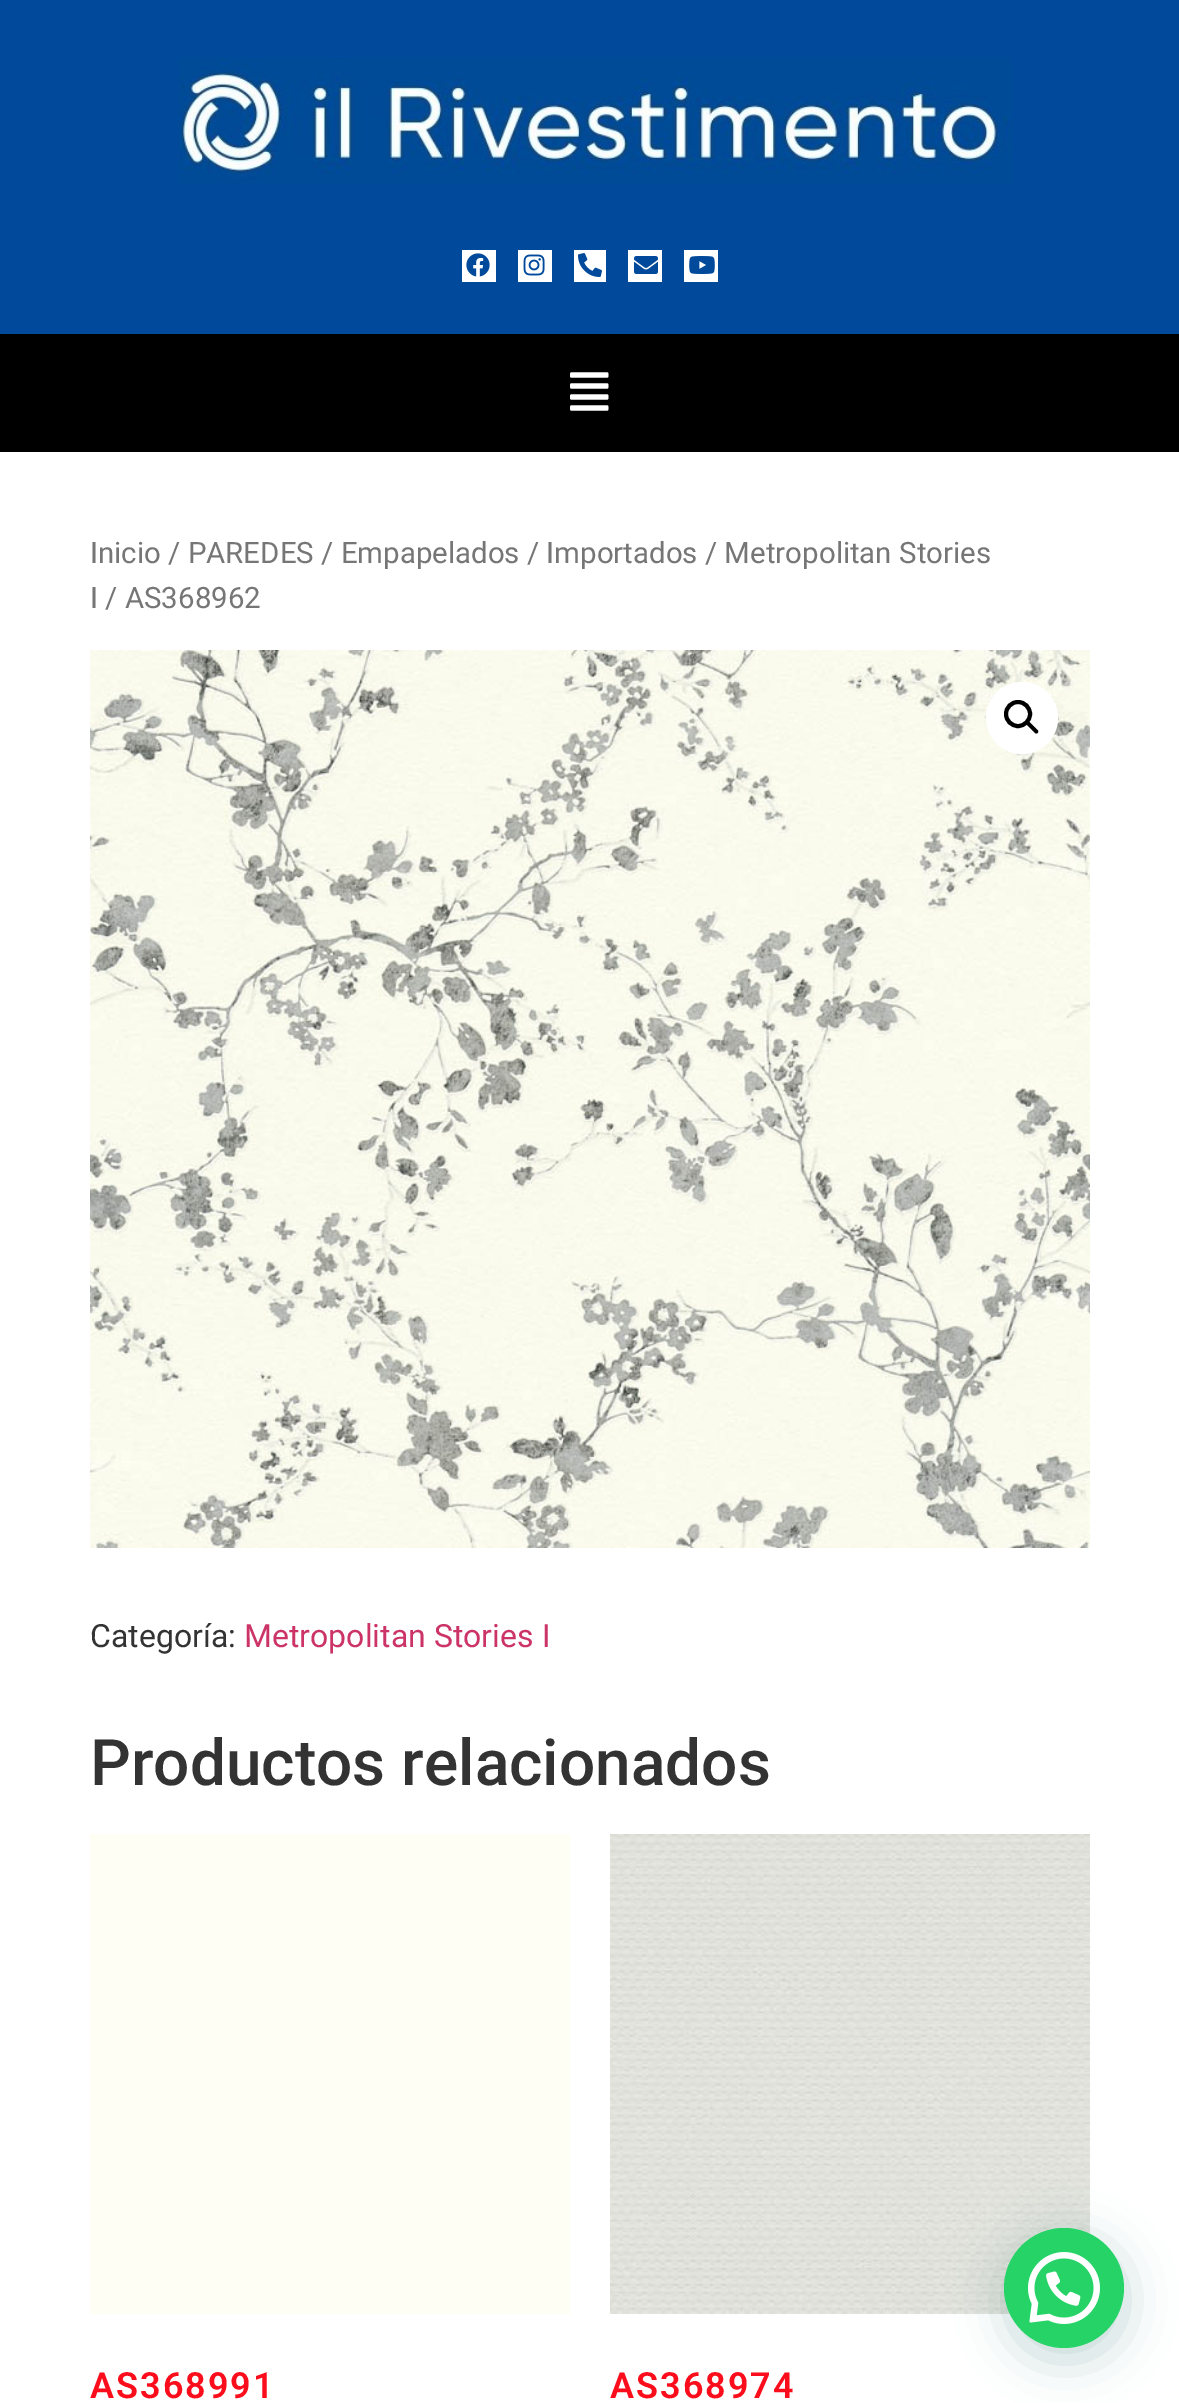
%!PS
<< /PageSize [1179 2403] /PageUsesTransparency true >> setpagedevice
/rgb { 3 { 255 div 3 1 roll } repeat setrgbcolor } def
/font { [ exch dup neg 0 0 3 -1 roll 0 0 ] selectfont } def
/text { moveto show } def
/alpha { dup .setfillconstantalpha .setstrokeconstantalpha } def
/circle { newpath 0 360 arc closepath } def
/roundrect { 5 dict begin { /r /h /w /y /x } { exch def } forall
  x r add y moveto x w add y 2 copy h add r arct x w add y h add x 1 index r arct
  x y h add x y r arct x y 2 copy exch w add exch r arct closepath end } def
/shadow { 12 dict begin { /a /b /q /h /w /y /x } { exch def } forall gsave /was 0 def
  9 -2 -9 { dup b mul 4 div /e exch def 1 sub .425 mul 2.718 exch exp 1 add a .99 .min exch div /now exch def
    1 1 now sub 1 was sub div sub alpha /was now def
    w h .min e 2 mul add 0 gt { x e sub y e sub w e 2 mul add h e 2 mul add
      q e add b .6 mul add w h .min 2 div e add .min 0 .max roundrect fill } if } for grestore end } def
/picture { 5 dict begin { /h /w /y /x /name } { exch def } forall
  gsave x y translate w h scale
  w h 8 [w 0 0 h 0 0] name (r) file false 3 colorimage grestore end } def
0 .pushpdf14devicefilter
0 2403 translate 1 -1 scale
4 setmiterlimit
255 255 255 rgb
0 0 1179 2403 rectfill
0 73 155 rgb
0 0 1179 334 rectfill
(img_01.rgb) 179 58 833 125 picture
255 255 255 rgb
462 250 34 32 rectfill
(img_02.rgb) 466 253 24 24 picture
518 250 34 32 rectfill
(img_03.rgb) 523 254 22 22 picture
574 250 32 32 rectfill
(img_04.rgb) 578 253 24 24 picture
628 250 34 32 rectfill
(img_05.rgb) 634 256 24 18 picture
684 250 34 32 rectfill
(img_06.rgb) 689 256 26 18 picture
0 0 0 rgb
0 334 1179 118 rectfill
(img_07.rgb) 570 372 39 39 picture
(img_08.rgb) 90 650 1000 898 picture
255 255 255 rgb
1022 718 36 circle fill
0 0 0 rgb
4 setlinewidth
1018 714 12 circle stroke
1026.5 721.5 moveto 0.5 -1 2 -1 2.5 0 rcurveto 8.5 8.5 rlineto 1 1 1 2 0 3 rcurveto -0.5 0.5 -2 0.5 -2.5 0 rcurveto -8.5 -8.5 rlineto -1 -1 -1 -2 0 -3 rcurveto closepath fill
254 254 244 rgb
90 1834 480 480 rectfill
(img_09.rgb) 610 1834 480 480 picture
7 94 84 rgb
1006 2240 120 120 60 24 0.24 shadow
37 211 102 rgb
1064 2288 60 circle fill
(img_10.rgb) 1028 2252 72 72 picture
/Roboto-Regular 29.45 font
118 118 118 rgb
(Inicio / PAREDES / Empapelados / Importados / Metropolitan Stories) 90 563 text
(I / AS368962) 90 608 text
/Roboto-Regular 32 font
51 51 51 rgb
(Categoría:) 90 1647 text
204 51 102 rgb
(Metropolitan Stories I) 244 1647 text
/Roboto-Medium 64 font
51 51 51 rgb
(Productos relacionados) 90 1785 text
/Roboto-SemiBold 36 font
251 13 27 rgb
90 2398 moveto 2 0 (AS368991) ashow
610 2398 moveto 2 0 (AS368974) ashow
.poppdf14devicefilter showpage
